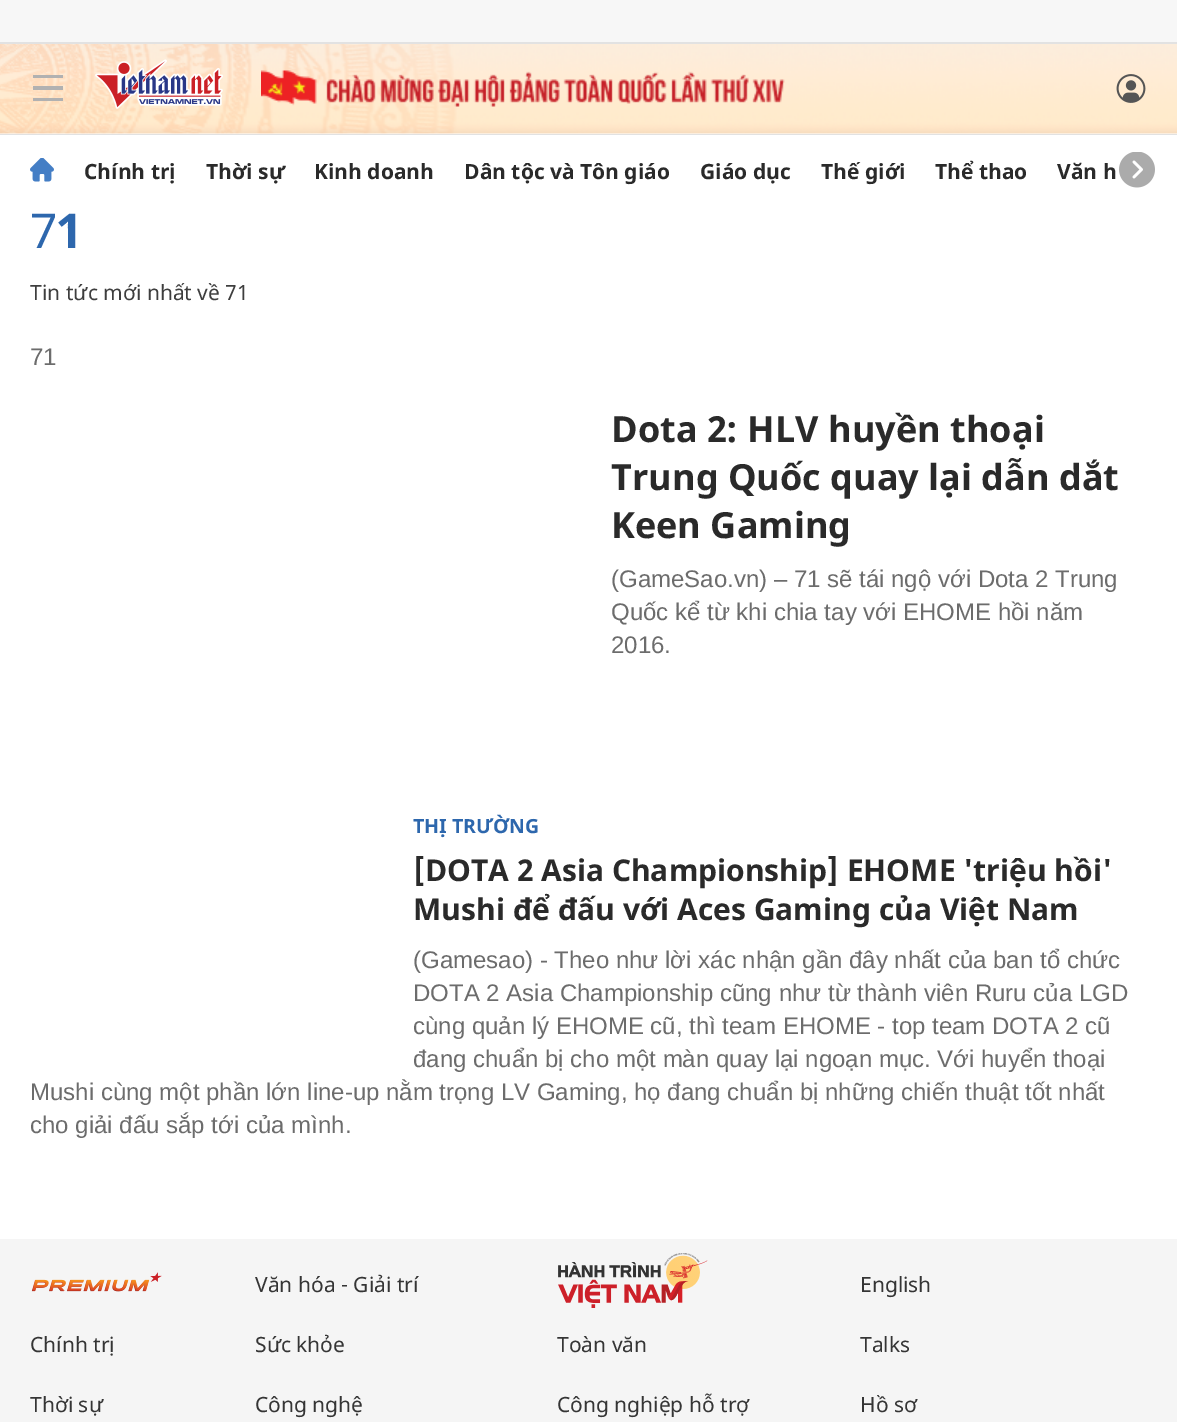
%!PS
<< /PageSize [1177 1422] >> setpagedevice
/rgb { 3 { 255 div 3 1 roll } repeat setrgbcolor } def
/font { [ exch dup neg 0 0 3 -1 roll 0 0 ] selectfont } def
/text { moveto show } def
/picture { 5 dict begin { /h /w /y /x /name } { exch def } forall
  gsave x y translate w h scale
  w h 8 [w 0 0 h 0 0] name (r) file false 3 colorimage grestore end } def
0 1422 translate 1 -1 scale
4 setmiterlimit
255 255 255 rgb
0 0 1177 1422 rectfill
247 247 247 rgb
0 0 1177 42 rectfill
226 226 226 rgb
0 42 1177 2 rectfill
(img_01.rgb) 0 44 1177 90 picture
0 134 1177 1 rectfill
177 177 177 rgb
33 75 30 3 rectfill
33 86 30 4 rectfill
33 98 30 3 rectfill
(img_02.rgb) 95 59 128 50 picture
(img_03.rgb) 261 70 524 37 picture
(img_04.rgb) 1116 74 30 29 picture
(img_05.rgb) 30 158 24 24 picture
(img_06.rgb) 1119 152 36 36 picture
245 245 245 rgb
0 1239 1177 183 rectfill
(img_07.rgb) 31 1272 131 20 picture
(img_08.rgb) 558 1253 150 55 picture
/NotoSans-Bold 21 font
42 42 42 rgb
(Chính trị) 84 179 text
(Thời sự) 206 179 text
(Kinh doanh) 314 179 text
(Dân tộc và Tôn giáo) 464 179 text
(Giáo dục) 700 179 text
(Thế giới) 821 179 text
(Thể thao) 935 179 text
(Văn h) 1057 179 text
/NotoSans-Regular 48 font
45 103 173 rgb
(7) 30 248 text
/NotoSans-Bold 48 font
(1) 56 248 text
/NotoSans-Regular 21 font
62 62 62 rgb
(T) 30 300 text
/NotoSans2-Regular 21 font
(in tức mới nhất về 71) 42 300 text
/LiberationSans-Regular 24 font
108 108 108 rgb
(71) 30 365 text
/NotoSans-Bold 36 font
42 42 42 rgb
(Dota 2: HLV huyền thoại) 611 442 text
(Trung Quốc quay lại dẫn dắt) 611 490 text
(Keen Gaming) 611 538 text
/LiberationSans-Regular 24 font
108 108 108 rgb
(\(GameSao.vn\) – 71 sẽ tái ngộ với Dota 2 Trung) 611 587 text
(Quốc kể từ khi chia tay với EHOME hồi năm) 611 620 text
(2016.) 611 653 text
/NotoSans-Bold 19.5 font
45 103 173 rgb
(THỊ TRƯỜNG) 413 833 text
/NotoSans-Bold 30 font
42 42 42 rgb
([DOTA 2 Asia Championship] EHOME 'triệu hồi') 413 881 text
(Mushi để đấu với Aces Gaming của Việt Nam) 413 920 text
/LiberationSans-Regular 24 font
108 108 108 rgb
(\(Gamesao\) - Theo như lời xác nhận gần đây nhất của ban tổ chức) 413 968 text
(DOTA 2 Asia Championship cũng như từ thành viên Ruru của LGD) 413 1001 text
(cùng quản lý EHOME cũ, thì team EHOME - top team DOTA 2 cũ) 413 1034 text
(đang chuẩn bị cho một màn quay lại ngoạn mục. Với huyển thoại) 413 1067 text
(Mushi cùng một phần lớn line-up nằm trọng LV Gaming, họ đang chuẩn bị những chiến thuật tốt nhất) 30 1100 text
(cho giải đấu sắp tới của mình.) 30 1133 text
/NotoSans2-Regular 21 font
53 53 53 rgb
(Văn hóa - Giải trí) 255 1292 text
(English) 860 1292 text
(Chính trị) 30 1352 text
(Sức khỏe) 255 1352 text
(Toàn văn) 557 1352 text
(Talks) 860 1352 text
(Thời sự) 30 1412 text
(Công nghệ) 255 1412 text
(Công nghiệp hỗ trợ) 557 1412 text
(Hồ sơ) 860 1412 text
showpage
